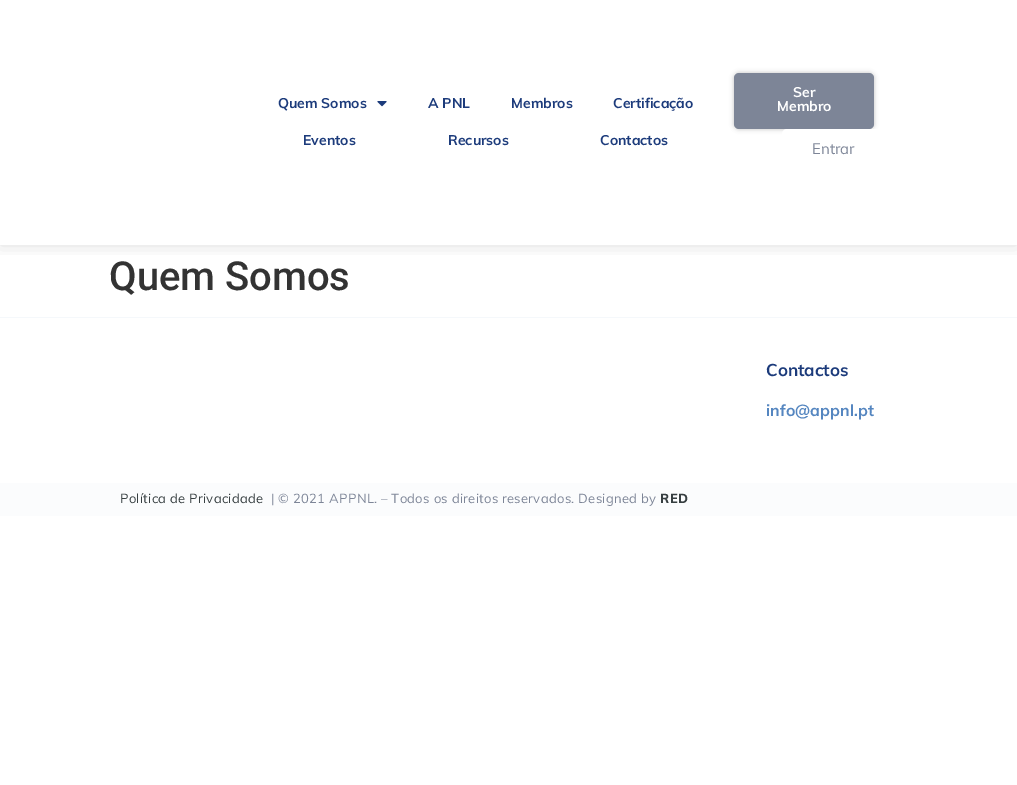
%!PS
<< /PageSize [1017 785] /PageUsesTransparency true >> setpagedevice
/rgb { 3 { 255 div 3 1 roll } repeat setrgbcolor } def
/font { [ exch dup neg 0 0 3 -1 roll 0 0 ] selectfont } def
/text { moveto show } def
/alpha { dup .setfillconstantalpha .setstrokeconstantalpha } def
/roundrect { 5 dict begin { /r /h /w /y /x } { exch def } forall
  x r add y moveto x w add y 2 copy h add r arct x w add y h add x 1 index r arct
  x y h add x y r arct x y 2 copy exch w add exch r arct closepath end } def
/shadow { 12 dict begin { /a /b /q /h /w /y /x } { exch def } forall gsave /was 0 def
  9 -2 -9 { dup b mul 4 div /e exch def 1 sub .425 mul 2.718 exch exp 1 add a .99 .min exch div /now exch def
    1 1 now sub 1 was sub div sub alpha /was now def
    w h .min e 2 mul add 0 gt { x e sub y e sub w e 2 mul add h e 2 mul add
      q e add b .6 mul add w h .min 2 div e add .min 0 .max roundrect fill } if } for grestore end } def
/picture { 5 dict begin { /h /w /y /x /name } { exch def } forall
  gsave x y translate w h scale
  w h 8 [w 0 0 h 0 0] name (r) file false 3 colorimage grestore end } def
0 .pushpdf14devicefilter
0 785 translate 1 -1 scale
4 setmiterlimit
255 255 255 rgb
0 0 1017 785 rectfill
gsave
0 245 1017 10 rectclip
0 0 0 rgb
0 0 1017 245 0 9 0.14 shadow
grestore
(img_01.rgb) 377 101 10 6 picture
0 0 0 rgb
734 73 140 56 5 2.5 0.23 shadow
125 133 151 rgb
734 73 140 56 5 roundrect fill
255 255 255 rgb
782 129 102 43 5 roundrect fill
245 248 251 rgb
0 317 1017 1 rectfill
251 252 253 rgb
0 483 1017 33 rectfill
/Muli-Bold 14 font
28 59 123 rgb
(Quem Somos) 278 108 text
(A PNL) 428 108 text
(Membros) 511 108 text
(Certificação) 613 108 text
(Eventos) 303 145 text
(Recursos) 448 145 text
(Contactos) 600 145 text
255 255 255 rgb
(Ser) 793 97 text
(Membro) 777 111 text
/Muli-Regular 15 font
125 133 151 rgb
(Entrar) 812 154 text
/Roboto-Medium 40 font
51 51 51 rgb
(Quem Somos) 109 290 text
/Muli-Bold 17 font
28 59 123 rgb
(Contactos) 766 376 text
/Muli-Bold 16 font
85 134 192 rgb
(info@appnl.pt) 766 416 text
/Muli-Regular 13 font
55 63 65 rgb
120 503 moveto 0.3 0 (Política de Privacidade) ashow
125 133 151 rgb
271 503 moveto 0.3 0 (| © 2021 APPNL. – Todos os direitos reservados. Designed by) ashow
/Muli-ExtraBold 13 font
55 63 65 rgb
660 503 moveto 0.3 0 (RED) ashow
.poppdf14devicefilter showpage
